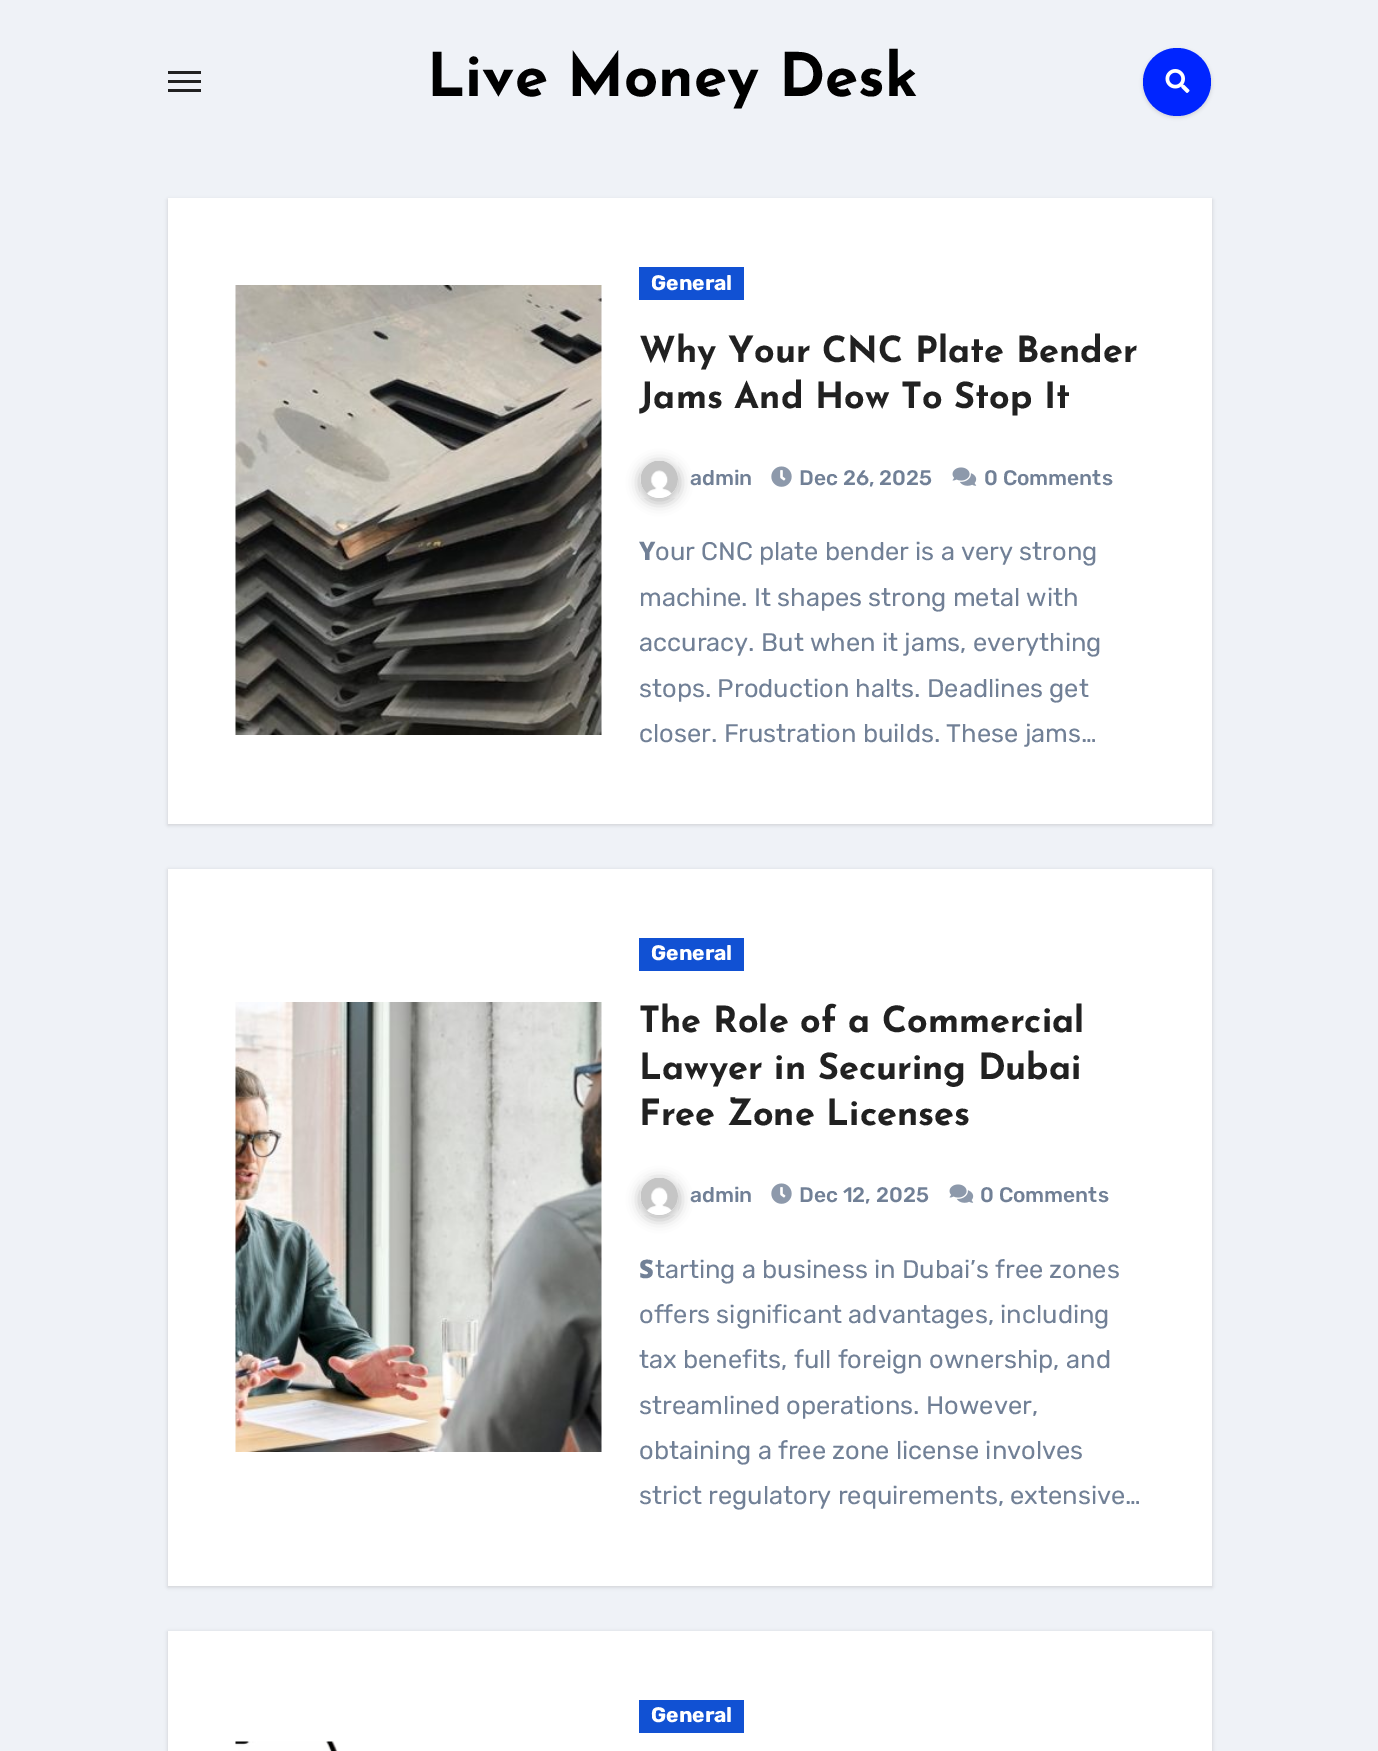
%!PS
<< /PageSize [1378 1751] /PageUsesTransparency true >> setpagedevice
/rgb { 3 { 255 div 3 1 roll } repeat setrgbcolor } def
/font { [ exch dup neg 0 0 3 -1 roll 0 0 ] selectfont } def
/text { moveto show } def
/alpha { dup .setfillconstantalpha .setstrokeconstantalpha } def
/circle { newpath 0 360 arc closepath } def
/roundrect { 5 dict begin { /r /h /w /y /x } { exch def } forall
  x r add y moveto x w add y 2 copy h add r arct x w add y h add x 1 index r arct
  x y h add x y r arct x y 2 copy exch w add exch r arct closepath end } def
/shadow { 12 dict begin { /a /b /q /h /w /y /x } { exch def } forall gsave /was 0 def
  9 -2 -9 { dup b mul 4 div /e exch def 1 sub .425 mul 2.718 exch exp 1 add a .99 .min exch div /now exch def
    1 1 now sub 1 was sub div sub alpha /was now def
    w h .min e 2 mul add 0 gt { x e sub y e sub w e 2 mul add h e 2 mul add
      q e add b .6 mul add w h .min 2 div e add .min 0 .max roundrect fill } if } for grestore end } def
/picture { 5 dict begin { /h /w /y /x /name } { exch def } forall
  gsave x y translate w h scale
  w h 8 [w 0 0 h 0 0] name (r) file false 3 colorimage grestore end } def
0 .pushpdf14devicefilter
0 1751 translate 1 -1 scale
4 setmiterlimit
239 242 247 rgb
0 0 1378 1751 rectfill
33 33 33 rgb
168 71 33 3 rectfill
168 80 33 3 rectfill
168 89 33 3 rectfill
0 0 0 rgb
1143 50 68 67 33.5 2 0.15 shadow
0 37 255 rgb
1177 82 34 circle fill
(img_01.rgb) 1165 69 25 24 picture
0 0 0 rgb
168 200 1044 625 0 2 0.15 shadow
255 255 255 rgb
168 198 1044 626 rectfill
(img_02.rgb) 235 285 367 450 picture
17 81 211 rgb
639 267 105 33 rectfill
33 33 33 rgb
639 462 41 41 20.5 6 0.3 shadow
(img_03.rgb) 640 460 38 38 picture
(img_04.rgb) 771 466 21 21 picture
(img_05.rgb) 952 467 25 19 picture
0 0 0 rgb
168 870 1044 717 0 2 0.15 shadow
255 255 255 rgb
168 869 1044 717 rectfill
(img_06.rgb) 235 1002 367 450 picture
17 81 211 rgb
639 938 105 33 rectfill
33 33 33 rgb
639 1179 41 41 20.5 6 0.3 shadow
(img_03.rgb) 640 1177 38 38 picture
(img_04.rgb) 771 1183 21 21 picture
(img_05.rgb) 949 1184 25 19 picture
0 0 0 rgb
168 1632 1044 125 0 2 0.15 shadow
255 255 255 rgb
168 1631 1044 120 rectfill
17 81 211 rgb
639 1700 105 33 rectfill
(img_07.rgb) 235 1741 103 10 picture
/JosefinSans-Bold 60 font
0 0 0 rgb
(Live Money Desk) 427 96 text
/Rubik-Bold 21 font
255 255 255 rgb
(General) 651 290 text
/JosefinSans-Bold 36 font
33 33 33 rgb
(Why Your CNC Plate Bender) 639 362 text
(Jams And How To Stop It) 639 408 text
/Rubik-Medium 21 font
113 128 150 rgb
(admin) 690 485 text
(Dec 26, 2025) 799 485 text
(0 Comments) 984 485 text
/NotoSans-ExtraBold 25.5 font
(Y) 639 560 text
/Rubik-Light 25.5 font
(our CNC plate bender is a very strong) 655 560 text
(machine. It shapes strong metal with) 639 606 text
(accuracy. But when it jams, everything) 639 651 text
(stops. Production halts. Deadlines get) 639 697 text
(closer. Frustration builds. These jams…) 639 742 text
/Rubik-Bold 21 font
255 255 255 rgb
(General) 651 960 text
/JosefinSans-Bold 36 font
33 33 33 rgb
(The Role of a Commercial) 639 1032 text
(Lawyer in Securing Dubai) 639 1079 text
(Free Zone Licenses) 639 1125 text
/Rubik-Medium 21 font
113 128 150 rgb
(admin) 690 1202 text
(Dec 12, 2025) 799 1202 text
(0 Comments) 980 1202 text
/NotoSans-Black 25.5 font
(S) 639 1278 text
/Rubik-Light 25.5 font
(tarting a business in Dubai’s free zones) 655 1278 text
(offers significant advantages, including) 639 1323 text
(tax benefits, full foreign ownership, and) 639 1368 text
(streamlined operations. However,) 639 1414 text
(obtaining a free zone license involves) 639 1459 text
(strict regulatory requirements, extensive…) 639 1504 text
/Rubik-Bold 21 font
255 255 255 rgb
(General) 651 1722 text
.poppdf14devicefilter showpage
